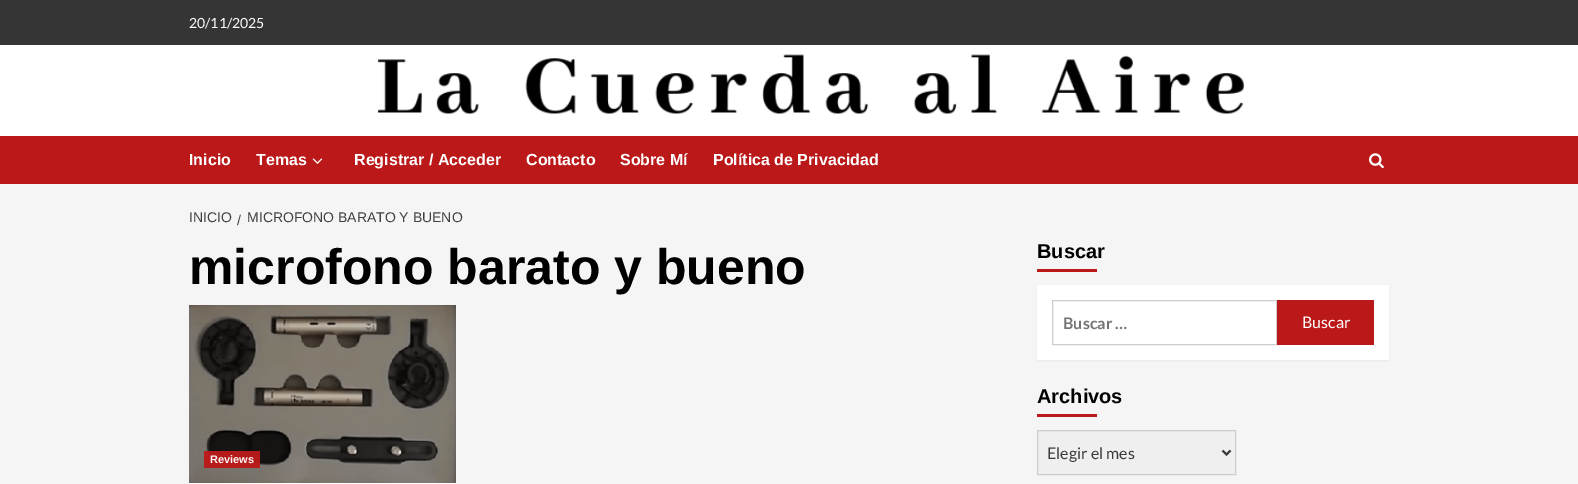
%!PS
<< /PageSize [1578 484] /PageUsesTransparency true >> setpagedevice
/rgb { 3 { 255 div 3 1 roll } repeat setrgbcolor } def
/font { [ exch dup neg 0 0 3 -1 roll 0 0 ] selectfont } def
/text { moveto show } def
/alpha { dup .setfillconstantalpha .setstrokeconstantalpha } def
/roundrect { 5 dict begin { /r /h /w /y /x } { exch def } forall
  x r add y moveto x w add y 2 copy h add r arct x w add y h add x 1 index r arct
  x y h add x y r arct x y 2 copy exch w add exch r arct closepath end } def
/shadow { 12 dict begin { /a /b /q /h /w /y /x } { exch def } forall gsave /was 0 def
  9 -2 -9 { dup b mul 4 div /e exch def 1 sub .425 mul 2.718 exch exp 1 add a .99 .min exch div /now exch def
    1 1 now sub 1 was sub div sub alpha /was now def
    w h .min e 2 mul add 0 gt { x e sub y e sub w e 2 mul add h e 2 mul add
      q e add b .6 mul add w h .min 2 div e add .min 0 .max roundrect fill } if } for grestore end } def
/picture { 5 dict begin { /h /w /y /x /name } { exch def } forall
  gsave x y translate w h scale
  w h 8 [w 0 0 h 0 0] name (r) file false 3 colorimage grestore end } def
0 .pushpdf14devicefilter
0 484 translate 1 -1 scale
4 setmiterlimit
245 245 245 rgb
0 0 1578 484 rectfill
53 53 53 rgb
0 0 1578 45 rectfill
(img_01.rgb) 0 45 1578 91 picture
187 25 25 rgb
0 136 1578 48 rectfill
(img_02.rgb) 312 158 11 6 picture
(img_03.rgb) 1369 153 15 16 picture
255 255 255 rgb
189 483 267 1 rectfill
(img_04.rgb) 189 305 267 178 picture
0.96 alpha
187 25 25 rgb
204 451 56 17 rectfill
1 alpha
1037 269 60 3 rectfill
0 0 0 rgb
1037 286 352 75 0 1 0.05 shadow
255 255 255 rgb
1037 285 352 75 rectfill
204 204 204 rgb
1052.5 300.5 224 44 rectstroke
187 25 25 rgb
1277 300 97 45 rectfill
1037 414 60 3 rectfill
239 239 239 rgb
1037.5 430.5 moveto 198 0 rlineto 0 44 rlineto -198 0 rlineto closepath gsave fill grestore
204 204 204 rgb
stroke
58 58 58 rgb
2 setlinewidth
1222.5 450.5 moveto 4 4 rlineto 4 -4 rlineto stroke
/Lato-Regular 14 font
255 255 255 rgb
(20/11/2025) 189 28 text
/LiberationSans-Bold 16 font
(Inicio) 189 165 text
(Temas) 256 165 text
(Registrar / Acceder) 354 165 text
(Contacto) 526 165 text
(Sobre Mí) 620 165 text
(Política de Privacidad) 713 165 text
/LiberationSans-Regular 14 font
64 64 64 rgb
(INICIO) 189 222 text
(/) 237 225 text
(MICROFONO BARATO Y BUENO) 247 222 text
/LiberationSans-Bold 50 font
0 0 0 rgb
(microfono barato y bueno) 189 284 text
/LiberationSans-Bold 11 font
252 246 246 rgb
(Reviews) 210 463 text
/LiberationSans-Bold 20 font
0 0 0 rgb
(Buscar) 1037 258 text
/Lato-Bold 16 font
117 117 117 rgb
(Buscar …) 1063 329 text
/Lato-Regular 16 font
255 255 255 rgb
(Buscar) 1302 328 text
/LiberationSans-Bold 20 font
0 0 0 rgb
(Archivos) 1037 403 text
/Lato-Regular 16 font
58 58 58 rgb
(Elegir el mes) 1047 459 text
.poppdf14devicefilter showpage
